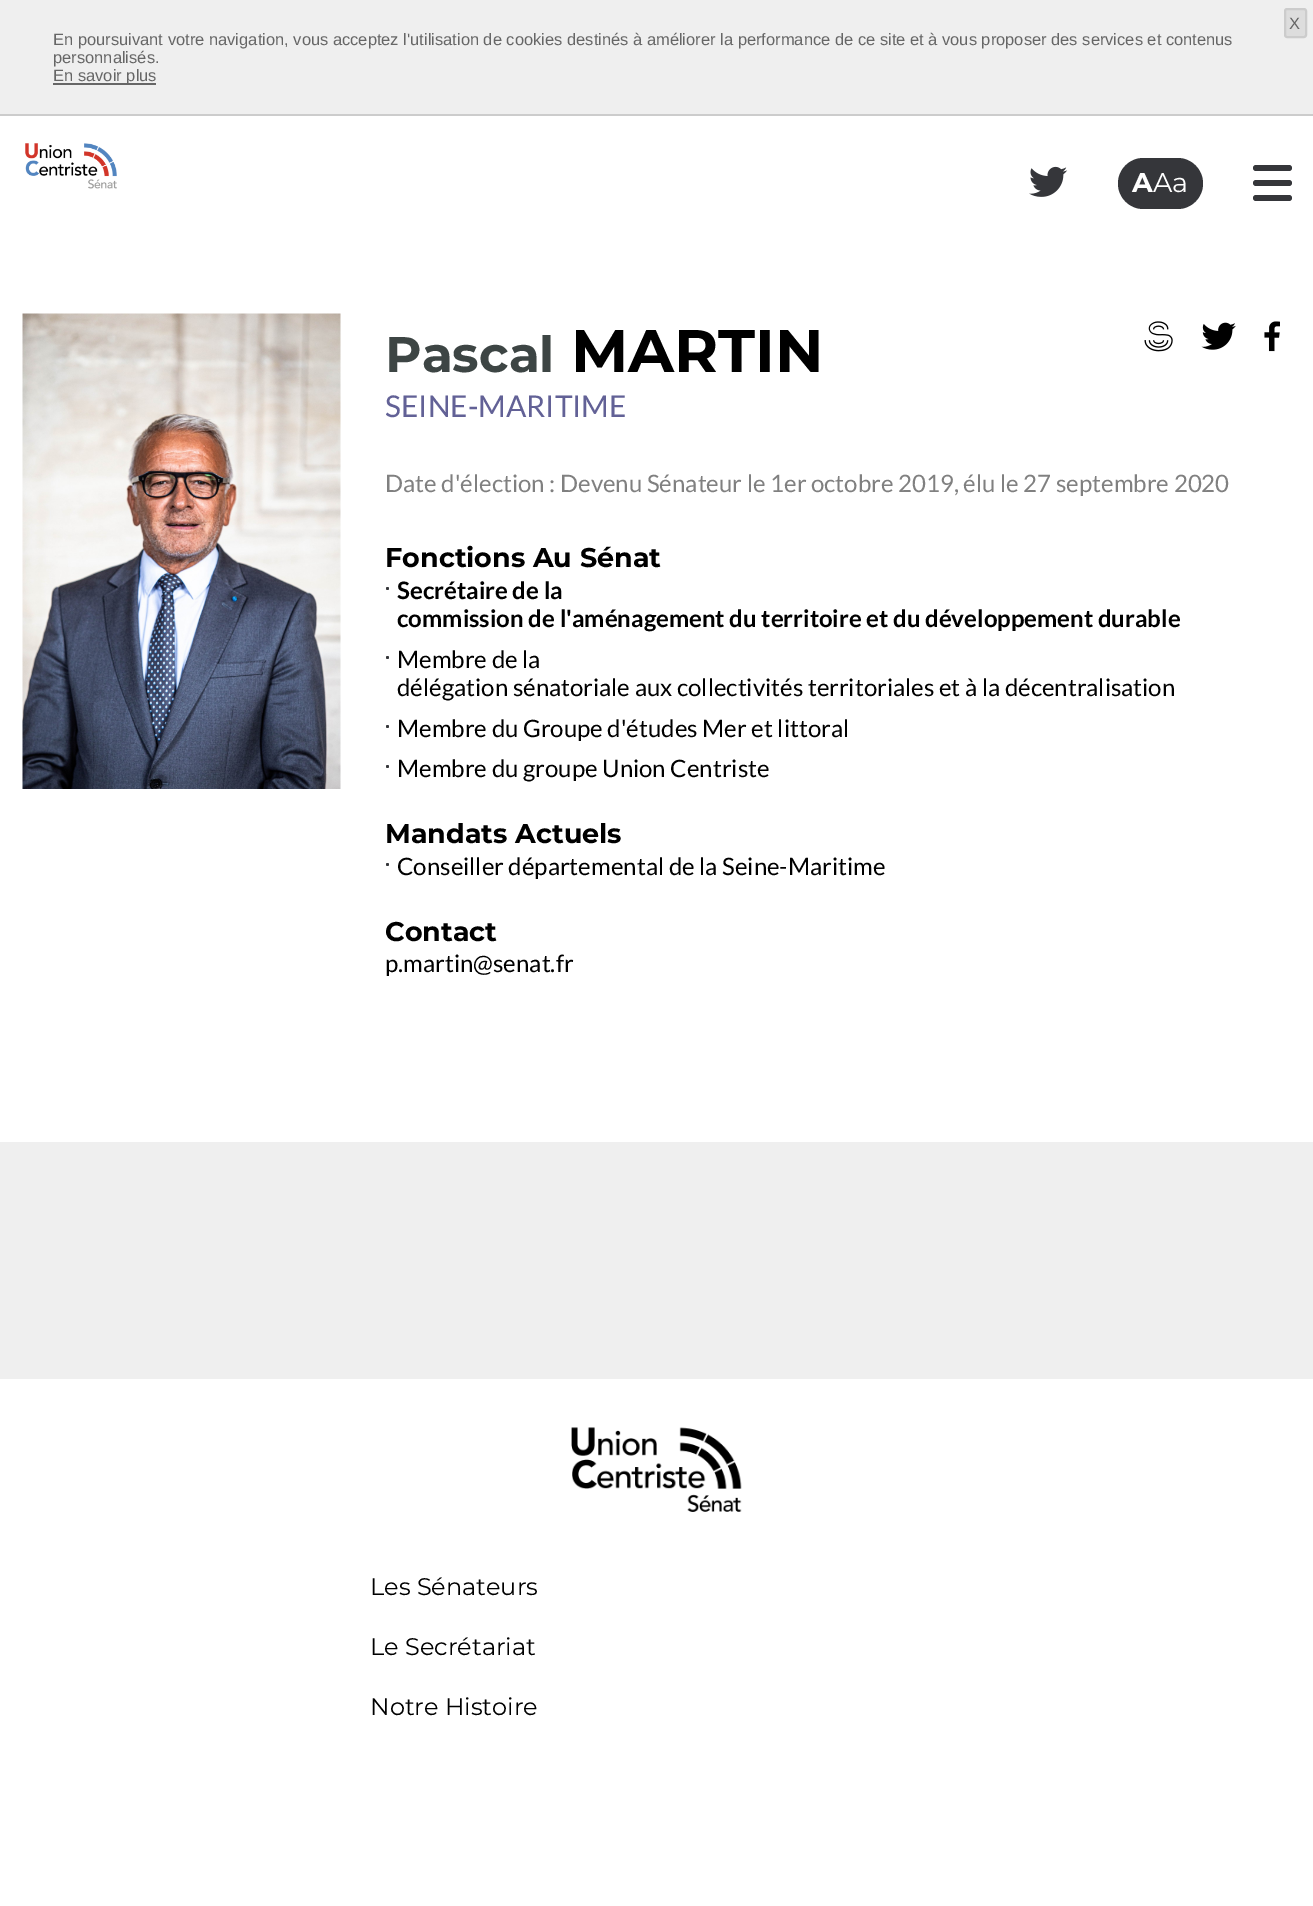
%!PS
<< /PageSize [1313 1906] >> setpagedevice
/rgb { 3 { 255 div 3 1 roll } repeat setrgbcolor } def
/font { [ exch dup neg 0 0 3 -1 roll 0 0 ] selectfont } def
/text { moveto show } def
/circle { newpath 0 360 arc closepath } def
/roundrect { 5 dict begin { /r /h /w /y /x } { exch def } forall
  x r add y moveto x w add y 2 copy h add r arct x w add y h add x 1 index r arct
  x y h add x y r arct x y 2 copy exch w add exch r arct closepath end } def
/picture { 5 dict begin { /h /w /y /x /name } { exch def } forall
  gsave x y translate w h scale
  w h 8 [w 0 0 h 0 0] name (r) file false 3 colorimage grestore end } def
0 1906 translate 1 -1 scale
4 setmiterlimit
255 255 255 rgb
0 0 1313 1906 rectfill
239 239 239 rgb
0 0 1313 114 rectfill
204 204 204 rgb
0 114 1313 2 rectfill
221 221 221 rgb
1285 9 21 28 2 roundrect gsave fill grestore
204 204 204 rgb
2 setlinewidth
stroke
102 102 102 rgb
53 83 103 2 rectfill
(img_01.rgb) 25 143 92 46 picture
(img_02.rgb) 1029 166 39 31 picture
53 54 58 rgb
1118 158 85 51 25.5 roundrect fill
1253 165 39 6 3 roundrect fill
1253 180 39 6 3 roundrect fill
1253 195 39 6 3 roundrect fill
(img_03.rgb) 22 313 319 476 picture
(img_04.rgb) 1144 321 29 31 picture
(img_05.rgb) 1201 322 35 28 picture
(img_06.rgb) 1264 321 16 31 picture
387.5 588.5 1.5 circle fill
387.5 657.5 1.5 circle fill
387.5 726.5 1.5 circle fill
387.5 766.5 1.5 circle fill
387.5 864.5 1.5 circle fill
239 239 239 rgb
0 1142 1313 237 rectfill
(img_07.rgb) 571 1427 171 85 picture
/LiberationSans-Regular 16.5 font
102 102 102 rgb
(X) 1289 29 text
(En poursuivant votre navigation, vous acceptez l'utilisation de cookies destinés à améliorer la performance de ce site et à vous proposer des services et contenus) 53 45 text
(personnalisés.) 53 63 text
(En savoir plus) 53 81 text
/Montserrat-Bold 27 font
255 255 255 rgb
(A) 1132 192 text
/Montserrat-Regular 27 font
(Aa) 1153 192 text
/Montserrat-Bold 50 font
61 69 68 rgb
(Pascal) 385 372 text
/Montserrat-Bold 60 font
0 0 0 rgb
(MARTIN) 571 372 text
/Lato-Regular 30 font
98 97 150 rgb
(SEINE-MARITIME) 385 417 text
/Lato-Regular 24 font
128 128 128 rgb
(Date d'élection : Devenu Sénateur le 1er octobre 2019, élu le 27 septembre 2020) 385 492 text
/Montserrat-Bold 27 font
0 0 0 rgb
(Fonctions Au Sénat) 385 567 text
/Lato-Bold 24 font
(Secrétaire de la) 397 599 text
(commission de l'aménagement du territoire et du développement durable) 397 627 text
/Lato-Regular 24 font
(Membre de la) 397 668 text
(délégation sénatoriale aux collectivités territoriales et à la décentralisation) 397 696 text
(Membre du Groupe d'études Mer et littoral) 397 737 text
(Membre du groupe Union Centriste) 397 777 text
/Montserrat-Bold 27 font
(Mandats Actuels) 385 843 text
/Lato-Regular 24 font
(Conseiller départemental de la Seine-Maritime) 397 875 text
/Montserrat-Bold 27 font
(Contact) 385 941 text
/Lato-Regular 24 font
(p.martin@senat.fr) 385 972 text
/Montserrat-Regular 24 font
(Les Sénateurs) 370 1595 text
(Le Secrétariat) 370 1655 text
(Notre Histoire) 370 1715 text
showpage
